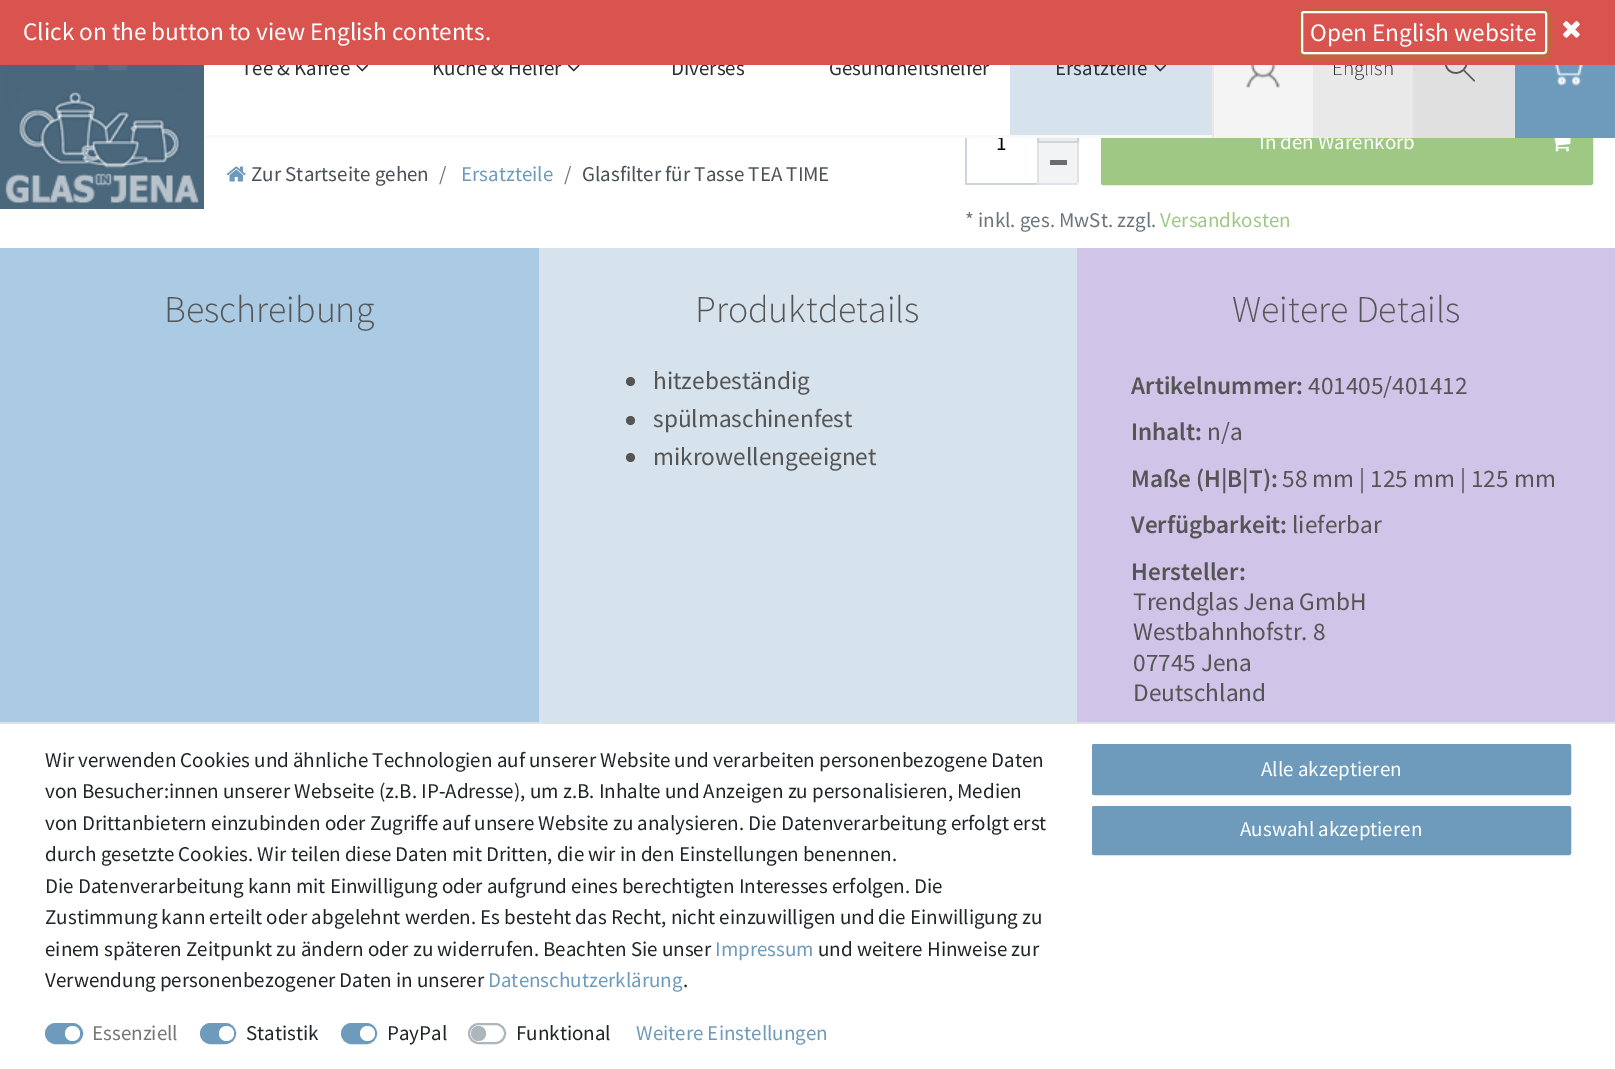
%!PS
<< /PageSize [1615 1069] /PageUsesTransparency true >> setpagedevice
/rgb { 3 { 255 div 3 1 roll } repeat setrgbcolor } def
/font { [ exch dup neg 0 0 3 -1 roll 0 0 ] selectfont } def
/text { moveto show } def
/alpha { dup .setfillconstantalpha .setstrokeconstantalpha } def
/circle { newpath 0 360 arc closepath } def
/roundrect { 5 dict begin { /r /h /w /y /x } { exch def } forall
  x r add y moveto x w add y 2 copy h add r arct x w add y h add x 1 index r arct
  x y h add x y r arct x y 2 copy exch w add exch r arct closepath end } def
/shadow { 12 dict begin { /a /b /q /h /w /y /x } { exch def } forall gsave /was 0 def
  9 -2 -9 { dup b mul 4 div /e exch def 1 sub .425 mul 2.718 exch exp 1 add a .99 .min exch div /now exch def
    1 1 now sub 1 was sub div sub alpha /was now def
    w h .min e 2 mul add 0 gt { x e sub y e sub w e 2 mul add h e 2 mul add
      q e add b .6 mul add w h .min 2 div e add .min 0 .max roundrect fill } if } for grestore end } def
/picture { 5 dict begin { /h /w /y /x /name } { exch def } forall
  gsave x y translate w h scale
  w h 8 [w 0 0 h 0 0] name (r) file false 3 colorimage grestore end } def
0 .pushpdf14devicefilter
0 1069 translate 1 -1 scale
4 setmiterlimit
255 255 255 rgb
0 0 1615 1069 rectfill
(img_02.rgb) 0 65 204 144 picture
(img_03.rgb) 356 65 13 7 picture
(img_04.rgb) 567 65 13 7 picture
233 236 239 rgb
1039 138 38 3 rectfill
206 212 218 rgb
2 setlinewidth
1038 102 40 40 rectstroke
158 200 132 rgb
1102 102 490 82 1 roundrect gsave fill grestore
stroke
214 227 237 rgb
1010 65 202 70 rectfill
(img_05.rgb) 1154 65 13 7 picture
233 233 233 rgb
1212 65 2 73 rectfill
110 154 187 rgb
1515 65 100 73 rectfill
(img_07.rgb) 1555 65 28 21 picture
(img_08.rgb) 226 166 20 16 picture
206 212 218 rgb
965 183 72 2 rectfill
965 138 2 47 rectfill
241 243 245 rgb
1037 143 moveto 42 0 rlineto 0 40 rlineto 0 1 -1 2 -2 2 rcurveto -40 0 rlineto closepath fill
223 227 231 rgb
1077 143 2 40 rectfill
1037 183 40 2 rectfill
1037 143 2 42 rectfill
106 109 112 rgb
1050 160 17 5 rectfill
(img_09.rgb) 1554 138 17 14 picture
171 202 228 rgb
0 248 539 474 rectfill
214 227 237 rgb
539 248 538 474 rectfill
85 85 85 rgb
630.5 381.5 4.5 circle fill
630.5 420.5 4.5 circle fill
630.5 457.5 4.5 circle fill
209 196 233 rgb
1077 248 538 474 rectfill
222 226 230 rgb
0 722 1615 2 rectfill
110 154 187 rgb
46 1024 36 19 9.5 roundrect gsave fill grestore
stroke
255 255 255 rgb
72.5 1033.5 7.5 circle fill
110 154 187 rgb
201 1024 34 19 9.5 roundrect gsave fill grestore
stroke
255 255 255 rgb
226.5 1033.5 7.5 circle fill
110 154 187 rgb
342 1024 34 19 9.5 roundrect gsave fill grestore
stroke
255 255 255 rgb
367.5 1033.5 7.5 circle fill
173 181 189 rgb
469 1024 36 19 9.5 roundrect stroke
478.5 1033.5 7.5 circle fill
110 154 187 rgb
1093 745 477 49 1 roundrect gsave fill grestore
stroke
1093 807 477 47 1 roundrect gsave fill grestore
stroke
/SourceSansPro-Regular 21 font
38 50 56 rgb
(Tee & Kaffee) 241 75 text
(Küche & Helfer) 432 75 text
(Diverses) 671 75 text
(Gesundheitshelfer) 829 75 text
(Ersatzteile) 1055 75 text
73 80 87 rgb
(Zur Startseite gehen) 251 181 text
108 117 125 rgb
(/) 439 181 text
110 154 187 rgb
(Ersatzteile) 461 181 text
108 117 125 rgb
(/) 564 181 text
73 80 87 rgb
(Glasfilter für Tasse TEA TIME) 582 181 text
0 0 0 rgb
(1) 996 150 text
248 249 250 rgb
204 135 1008 3 rectfill
255 255 255 rgb
(In den Warenkorb) 1259 149 text
224 224 224 rgb
1413 65 102 73 rectfill
85 85 85 rgb
1473.5 81 moveto -20 -20 rlineto 0 -1 rlineto 1 -1.5 2.5 1.5 4.5 3.5 rcurveto 16.5 16.5 rlineto 1 0.5 0 2 -1 1 rcurveto closepath fill
224 224 224 rgb
1448 70.5 moveto -10.5 -10.5 5.5 -26.5 16 -16 rcurveto 10.5 10.5 -5.5 26.5 -16 16 rcurveto closepath fill
85 85 85 rgb
1.5 setlinewidth
1448.5 70 moveto -9.5 -10 5.5 -24.5 15 -15 rcurveto 10 10 -5 24.5 -15 15 rcurveto closepath stroke
233 233 233 rgb
1313 65 100 73 rectfill
/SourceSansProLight-Light 21 font
38 50 56 rgb
(English) 1332 75 text
217 83 79 rgb
0 0 1615 65 rectfill
(img_01.rgb) 1563 21 17 17 picture
173 119 42 rgb
1299 9 252 50 6 1.5 0.57 shadow
217 83 79 rgb
1302 12 244 41 2 roundrect gsave fill grestore
255 255 255 rgb
2 setlinewidth
stroke
/SourceSansPro-Regular 25.25 font
(Open English website) 1310 41 text
(Click on the button to view English contents.) 23 40 text
244 244 244 rgb
1214 65 99 73 rectfill
(img_06.rgb) 1246 65 34 23 picture
/SourceSansPro-Regular 21 font
108 117 125 rgb
(* inkl. ges. MwSt. zzgl.) 965 227 text
158 200 132 rgb
(Versandkosten) 1160 227 text
/SourceSansProLight-Light 37.75 font
85 85 85 rgb
(Beschreibung) 164 322 text
(Produktdetails) 695 322 text
/SourceSansPro-Regular 25.25 font
(hitzebeständig) 653 389 text
(spülmaschinenfest) 653 427 text
(mikrowellengeeignet) 653 465 text
/SourceSansProLight-Light 37.75 font
(Weitere Details) 1232 322 text
/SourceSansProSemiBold-SemiBold 25.25 font
(Artikelnummer:) 1131 394 text
/SourceSansPro-Regular 25.25 font
(401405/401412) 1308 394 text
/SourceSansProSemiBold-SemiBold 25.25 font
(Inhalt:) 1131 440 text
/SourceSansPro-Regular 25.25 font
(n/a) 1207 440 text
/SourceSansProSemiBold-SemiBold 25.25 font
(Maße \(H|B|T\):) 1131 487 text
/SourceSansPro-Regular 25.25 font
(58 mm | 125 mm | 125 mm) 1282 487 text
/SourceSansProSemiBold-SemiBold 25.25 font
(Verfügbarkeit:) 1131 533 text
/SourceSansPro-Regular 25.25 font
(lieferbar) 1292 533 text
/SourceSansProSemiBold-SemiBold 25.25 font
(Hersteller:) 1131 580 text
/SourceSansPro-Regular 25.25 font
(Trendglas Jena GmbH) 1133 610 text
(Westbahnhofstr. 8) 1133 640 text
(07745 Jena) 1133 671 text
(Deutschland) 1133 701 text
/SourceSansPro-Regular 21 font
33 37 41 rgb
(Wir verwenden Cookies und ähnliche Technologien auf unserer Website und verarbeiten personenbezogene Daten) 45 767 text
(von Besucher:innen unserer Webseite \(z.B. IP-Adresse\), um z.B. Inhalte und Anzeigen zu personalisieren, Medien) 45 798 text
(von Drittanbietern einzubinden oder Zugriffe auf unsere Website zu analysieren. Die Datenverarbeitung erfolgt erst) 45 830 text
(durch gesetzte Cookies. Wir teilen diese Daten mit Dritten, die wir in den Einstellungen benennen.) 45 861 text
(Die Datenverarbeitung kann mit Einwilligung oder aufgrund eines berechtigten Interesses erfolgen. Die) 45 893 text
(Zustimmung kann erteilt oder abgelehnt werden. Es besteht das Recht, nicht einzuwilligen und die Einwilligung zu) 45 924 text
(einem späteren Zeitpunkt zu ändern oder zu widerrufen. Beachten Sie unser) 45 956 text
110 154 187 rgb
(Impressum) 715 956 text
33 37 41 rgb
(und weitere Hinweise zur) 818 956 text
(Verwendung personenbezogener Daten in unserer) 45 987 text
110 154 187 rgb
(Datenschutzerklärung) 488 987 text
33 37 41 rgb
(.) 683 987 text
118 118 118 rgb
(Essenziell) 92 1040 text
33 37 41 rgb
(Statistik) 246 1040 text
(PayPal) 387 1040 text
(Funktional) 516 1040 text
110 154 187 rgb
(Weitere Einstellungen) 636 1040 text
255 255 255 rgb
(Alle akzeptieren) 1261 776 text
(Auswahl akzeptieren) 1240 836 text
.poppdf14devicefilter showpage
